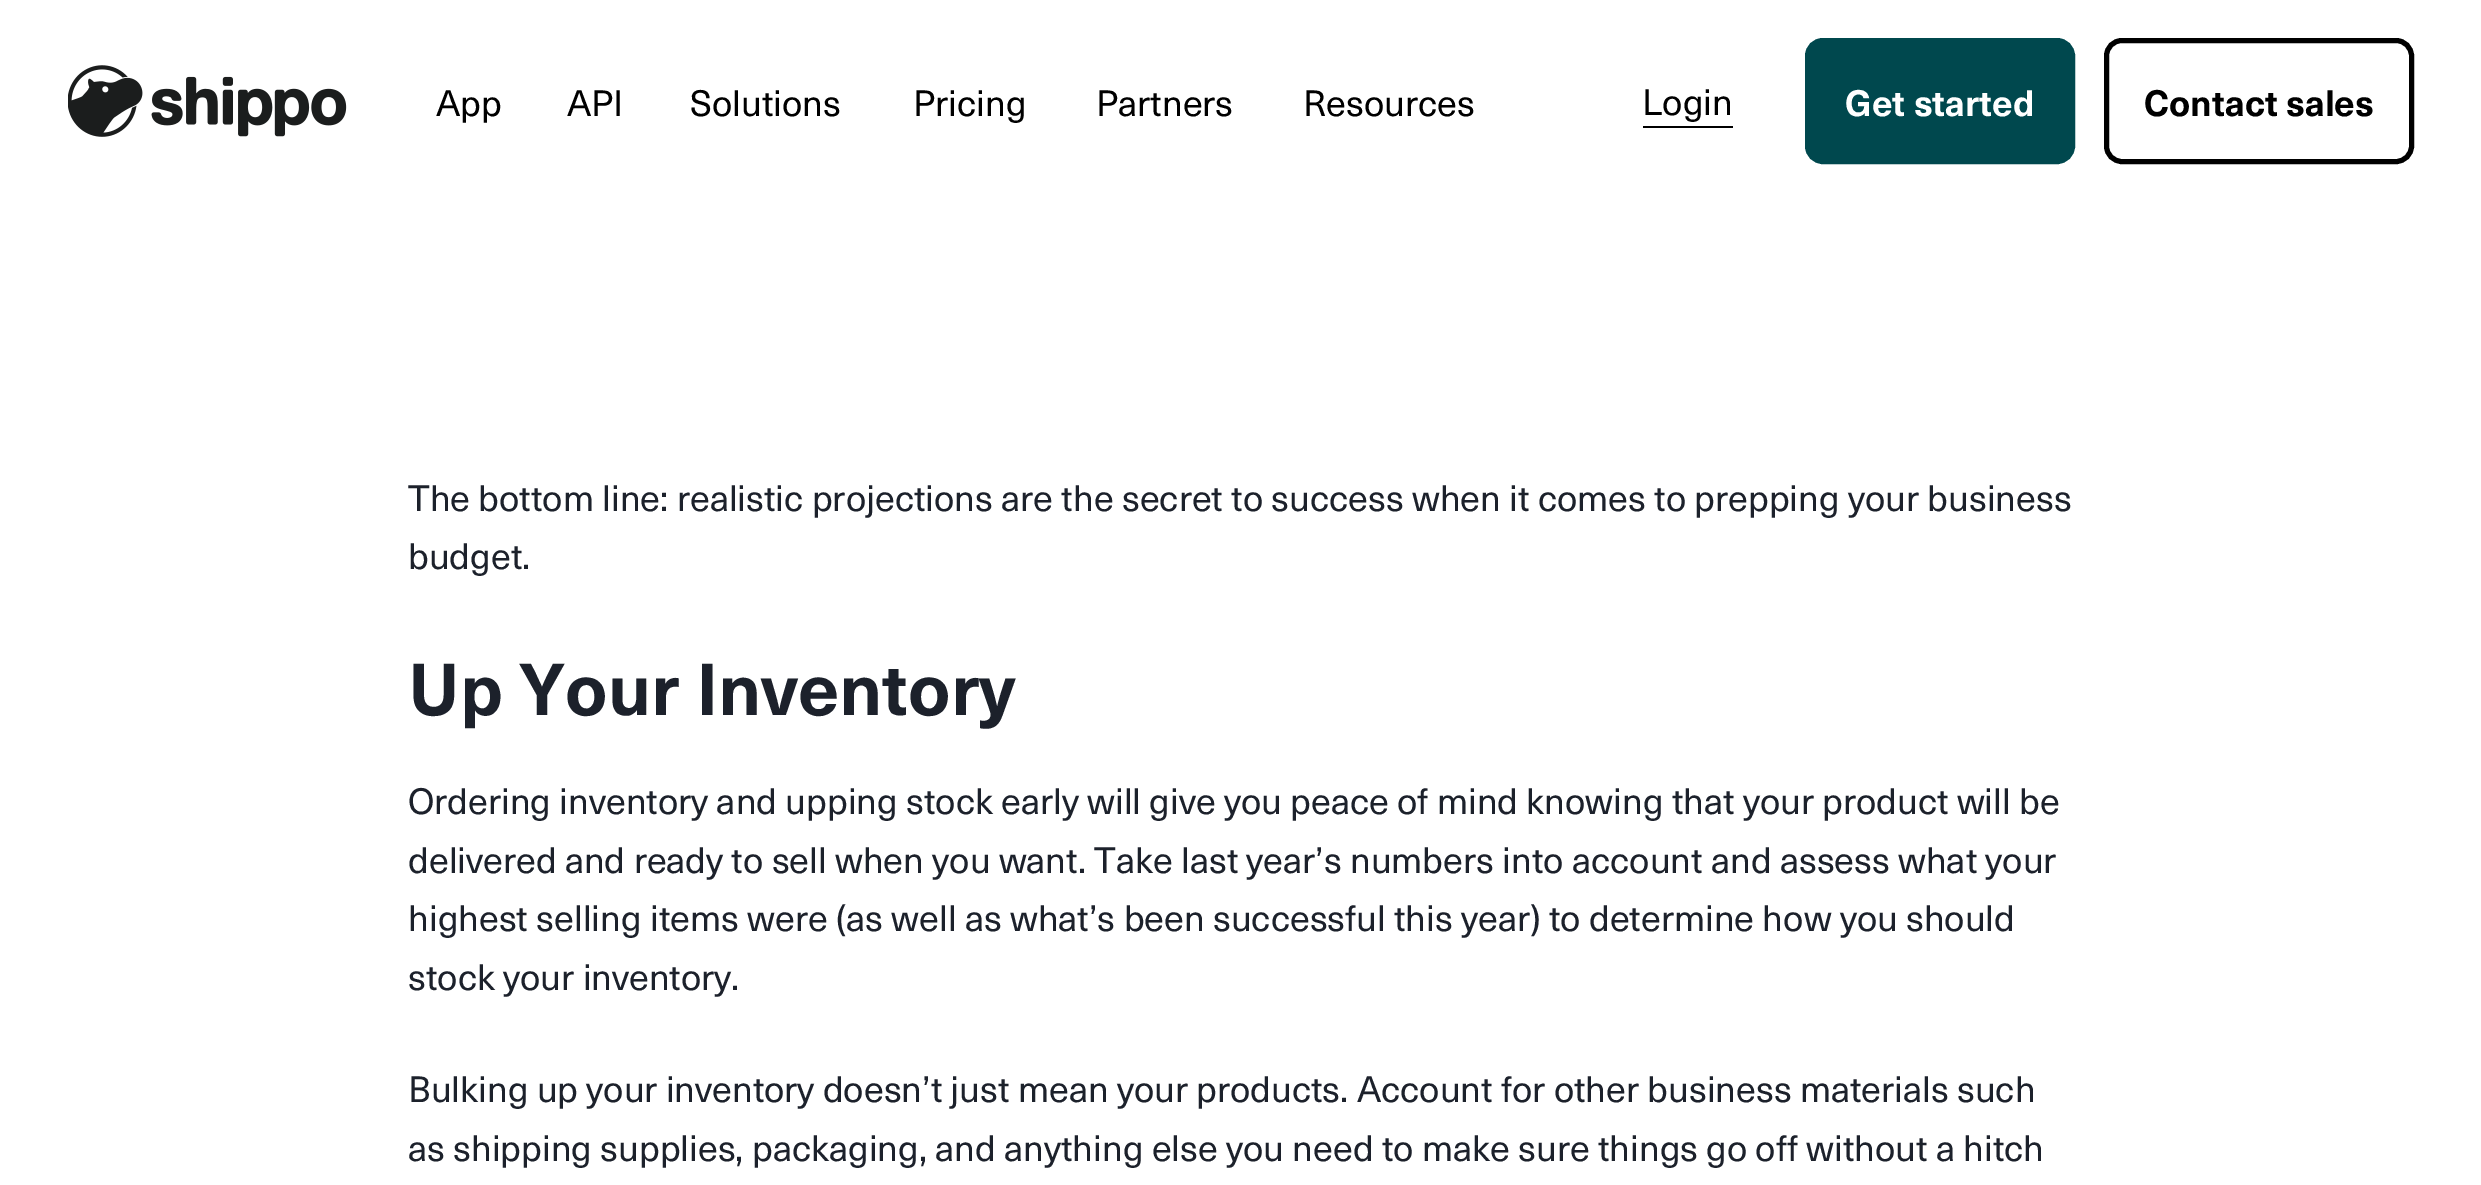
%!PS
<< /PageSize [2481 1185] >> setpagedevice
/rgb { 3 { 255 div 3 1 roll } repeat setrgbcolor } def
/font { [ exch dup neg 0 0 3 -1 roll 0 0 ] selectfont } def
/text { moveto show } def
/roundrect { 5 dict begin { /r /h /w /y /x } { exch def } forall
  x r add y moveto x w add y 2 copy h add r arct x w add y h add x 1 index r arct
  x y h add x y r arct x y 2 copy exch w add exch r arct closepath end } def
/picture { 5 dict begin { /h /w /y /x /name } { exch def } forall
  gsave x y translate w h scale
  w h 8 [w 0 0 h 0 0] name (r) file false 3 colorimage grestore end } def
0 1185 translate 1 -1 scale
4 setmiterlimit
255 255 255 rgb
0 0 2481 1185 rectfill
(img_01.rgb) 68 65 279 72 picture
0 0 0 rgb
1643 126 90 2 rectfill
0 72 78 rgb
1807.5 40.5 265 121 15.5 roundrect gsave fill grestore
5 setlinewidth
stroke
0 0 0 rgb
2106.5 40.5 305 121 15.5 roundrect stroke
/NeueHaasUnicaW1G-Regular 36 font
(App) 436 116 text
(API) 567 116 text
(Solutions) 690 116 text
(Pricing) 913 116 text
(Partners) 1096 116 text
(Resources) 1303 116 text
(Login) 1642 115 text
/NeueHaasUnicaW1G-Bold 36 font
255 255 255 rgb
(Get started) 1845 116 text
0 0 0 rgb
(Contact sales) 2144 116 text
/NeueHaasUnicaW1G-Regular 36 font
28 33 43 rgb
(The bottom line: realistic projections are the secret to success when it comes to prepping your business) 408 511 text
(budget.) 408 569 text
/NeueHaasUnicaW1G-Bold 72 font
(Up Your Inventory) 408 715 text
/NeueHaasUnicaW1G-Regular 36 font
(Ordering inventory and upping stock early will give you peace of mind knowing that your product will be) 408 814 text
(delivered and ready to sell when you want. Take last year’s numbers into account and assess what your) 408 873 text
(highest selling items were \(as well as what’s been successful this year\) to determine how you should) 408 931 text
(stock your inventory.) 408 990 text
(Bulking up your inventory doesn’t just mean your products. Account for other business materials such) 408 1102 text
(as shipping supplies, packaging, and anything else you need to make sure things go off without a hitch) 408 1161 text
showpage
